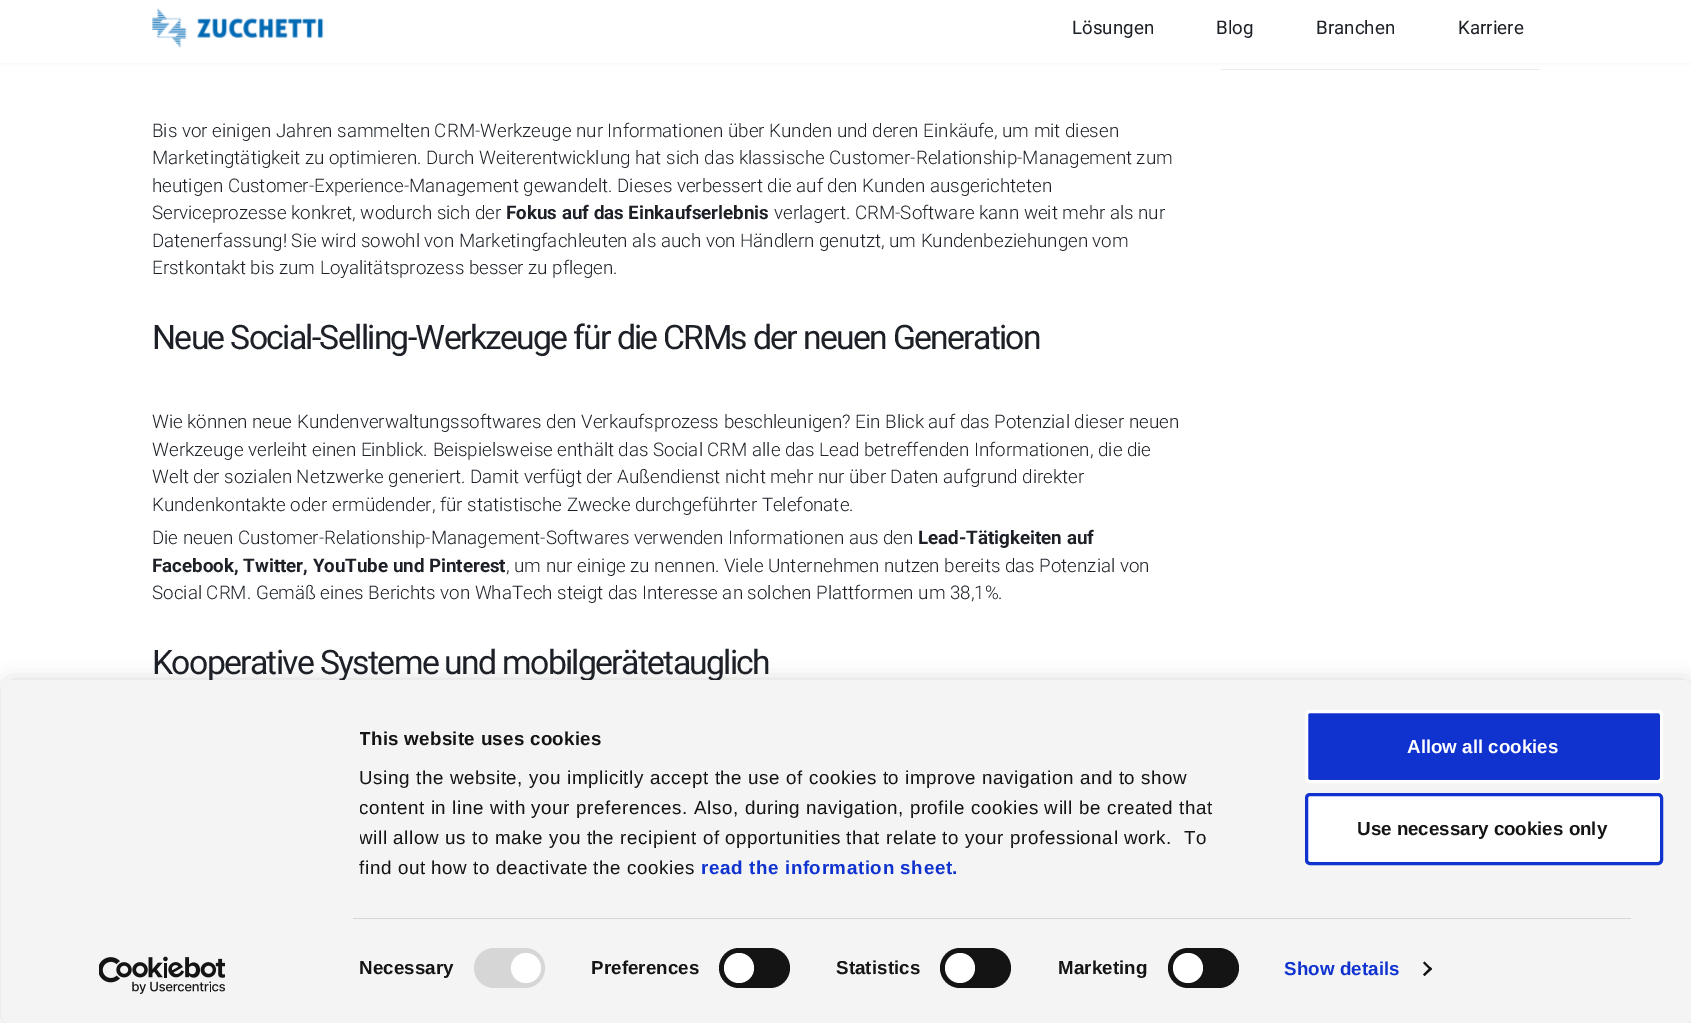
%!PS
<< /PageSize [1691 1023] /PageUsesTransparency true >> setpagedevice
/rgb { 3 { 255 div 3 1 roll } repeat setrgbcolor } def
/font { [ exch dup neg 0 0 3 -1 roll 0 0 ] selectfont } def
/text { moveto show } def
/alpha { dup .setfillconstantalpha .setstrokeconstantalpha } def
/circle { newpath 0 360 arc closepath } def
/roundrect { 5 dict begin { /r /h /w /y /x } { exch def } forall
  x r add y moveto x w add y 2 copy h add r arct x w add y h add x 1 index r arct
  x y h add x y r arct x y 2 copy exch w add exch r arct closepath end } def
/shadow { 12 dict begin { /a /b /q /h /w /y /x } { exch def } forall gsave /was 0 def
  9 -2 -9 { dup b mul 4 div /e exch def 1 sub .425 mul 2.718 exch exp 1 add a .99 .min exch div /now exch def
    1 1 now sub 1 was sub div sub alpha /was now def
    w h .min e 2 mul add 0 gt { x e sub y e sub w e 2 mul add h e 2 mul add
      q e add b .6 mul add w h .min 2 div e add .min 0 .max roundrect fill } if } for grestore end } def
/picture { 5 dict begin { /h /w /y /x /name } { exch def } forall
  gsave x y translate w h scale
  w h 8 [w 0 0 h 0 0] name (r) file false 3 colorimage grestore end } def
0 .pushpdf14devicefilter
0 1023 translate 1 -1 scale
4 setmiterlimit
255 255 255 rgb
0 0 1691 1023 rectfill
235 235 235 rgb
1221 69 319 1 rectfill
0 0 0 rgb
0 0 1691 63 0 2 0.06 shadow
255 255 255 rgb
0 0 1691 63 rectfill
(img_01.rgb) 152 8 172 40 picture
0 0 0 rgb
1 680 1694 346 11 9.5 0.15 shadow
/Roboto-Regular 18.75 font
29 33 39 rgb
(Lösungen) 1072 34 text
(Blog) 1216 34 text
(Branchen) 1316 34 text
(Karriere) 1458 34 text
/Roboto-Light 18.75 font
(Bis vor einigen Jahren sammelten CRM-Werkzeuge nur Informationen über Kunden und deren Einkäufe, um mit diesen) 152 137 text
(Marketingtätigkeit zu optimieren. Durch Weiterentwicklung hat sich das klassische Customer-Relationship-Management zum) 152 164 text
(heutigen Customer-Experience-Management gewandelt. Dieses verbessert die auf den Kunden ausgerichteten) 152 192 text
(Serviceprozesse konkret, wodurch sich der) 152 219 text
/Roboto-Bold 18.75 font
(Fokus auf das Einkaufserlebnis) 506 219 text
/Roboto-Light 18.75 font
(verlagert. CRM-Software kann weit mehr als nur) 774 219 text
(Datenerfassung! Sie wird sowohl von Marketingfachleuten als auch von Händlern genutzt, um Kundenbeziehungen vom) 152 247 text
(Erstkontakt bis zum Loyalitätsprozess besser zu pflegen.) 152 274 text
/Roboto-Regular 33.75 font
152 349 moveto -1.7 0 (Neue Social-Selling-Werkzeuge für die CRMs der neuen Generation) ashow
/Roboto-Light 18.75 font
(Wie können neue Kundenverwaltungssoftwares den Verkaufsprozess beschleunigen? Ein Blick auf das Potenzial dieser neuen) 152 428 text
(Werkzeuge verleiht einen Einblick. Beispielsweise enthält das Social CRM alle das Lead betreffenden Informationen, die die) 152 456 text
(Welt der sozialen Netzwerke generiert. Damit verfügt der Außendienst nicht mehr nur über Daten aufgrund direkter) 152 483 text
(Kundenkontakte oder ermüdender, für statistische Zwecke durchgeführter Telefonate.) 152 511 text
(Die neuen Customer-Relationship-Management-Softwares verwenden Informationen aus den) 152 544 text
/Roboto-Bold 18.75 font
(Lead-Tätigkeiten auf) 918 544 text
(Facebook, Twitter, YouTube und Pinterest) 152 572 text
/Roboto-Light 18.75 font
(, um nur einige zu nennen. Viele Unternehmen nutzen bereits das Potenzial von) 506 572 text
(Social CRM. Gemäß eines Berichts von WhaTech steigt das Interesse an solchen Plattformen um 38,1%.) 152 599 text
/Roboto-Regular 33.75 font
152 674 moveto -1.7 0 (Kooperative Systeme und mobilgerätetauglich) ashow
244 244 244 rgb
1 680 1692 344 10 roundrect fill
gsave
360 724 878 159 rectclip
/LiberationSans-Bold 18.75 font
20 20 20 rgb
359 745 moveto 0.3 0 (This website uses cookies) ashow
grestore
/LiberationSans-Regular 18.75 font
20 20 20 rgb
359 784 moveto 0.62 0 (Using the website, you implicitly accept the use of cookies to improve navigation and to show) ashow
gsave
360 724 878 159 rectclip
359 814 moveto 0.62 0 (content in line with your preferences.) ashow
grestore
694 814 moveto 0.62 0 (Also, during navigation, profile cookies will be created that) ashow
gsave
360 724 878 159 rectclip
359 844 moveto 0.62 0 (will allow us to make you the recipient of opportunities that relate to your professional work.) ashow
grestore
1184 844 moveto 0.62 0 (To) ashow
359 874 moveto 0.62 0 (find out how to deactivate the cookies) ashow
/LiberationSans-Bold 18.75 font
16 50 207 rgb
701 874 moveto 0.62 0 (read the information sheet.) ashow
214 214 214 rgb
353 918 1278 1 rectfill
20 20 20 rgb
359 974 moveto 0.1 0 (Necessary) ashow
214 214 214 rgb
474 948 71 40 20 roundrect fill
255 255 255 rgb
526 968 15 circle fill
20 20 20 rgb
591 974 moveto 0.1 0 (Preferences) ashow
719 948 71 40 20 roundrect fill
255 255 255 rgb
739 968 15 circle fill
20 20 20 rgb
836 974 moveto 0.1 0 (Statistics) ashow
940 948 71 40 20 roundrect fill
255 255 255 rgb
960 968 15 circle fill
20 20 20 rgb
1058 974 moveto 0.1 0 (Marketing) ashow
1168 948 71 40 20 roundrect fill
255 255 255 rgb
1188 968 15 circle fill
16 50 207 rgb
1284 975 moveto 0.1 0 (Show details) ashow
20 20 20 rgb
1424.5 961.5 moveto 7.5 7.5 rlineto -1.5 1.5 rlineto -7.5 -7.5 rlineto closepath fill
1430.5 967 moveto 1.5 2 rlineto -7.5 7 rlineto -1.5 -1.5 rlineto closepath fill
16 50 207 rgb
1306.5 711.5 355 70 3.5 roundrect gsave fill grestore
255 255 255 rgb
3 setlinewidth
stroke
(Allow all cookies) 1407 753 text
1306.5 794.5 355 69 3.5 roundrect gsave fill grestore
16 50 207 rgb
stroke
20 20 20 rgb
(Use necessary cookies only) 1357 835 text
(img_02.rgb) 99 956 126 38 picture
.poppdf14devicefilter showpage
